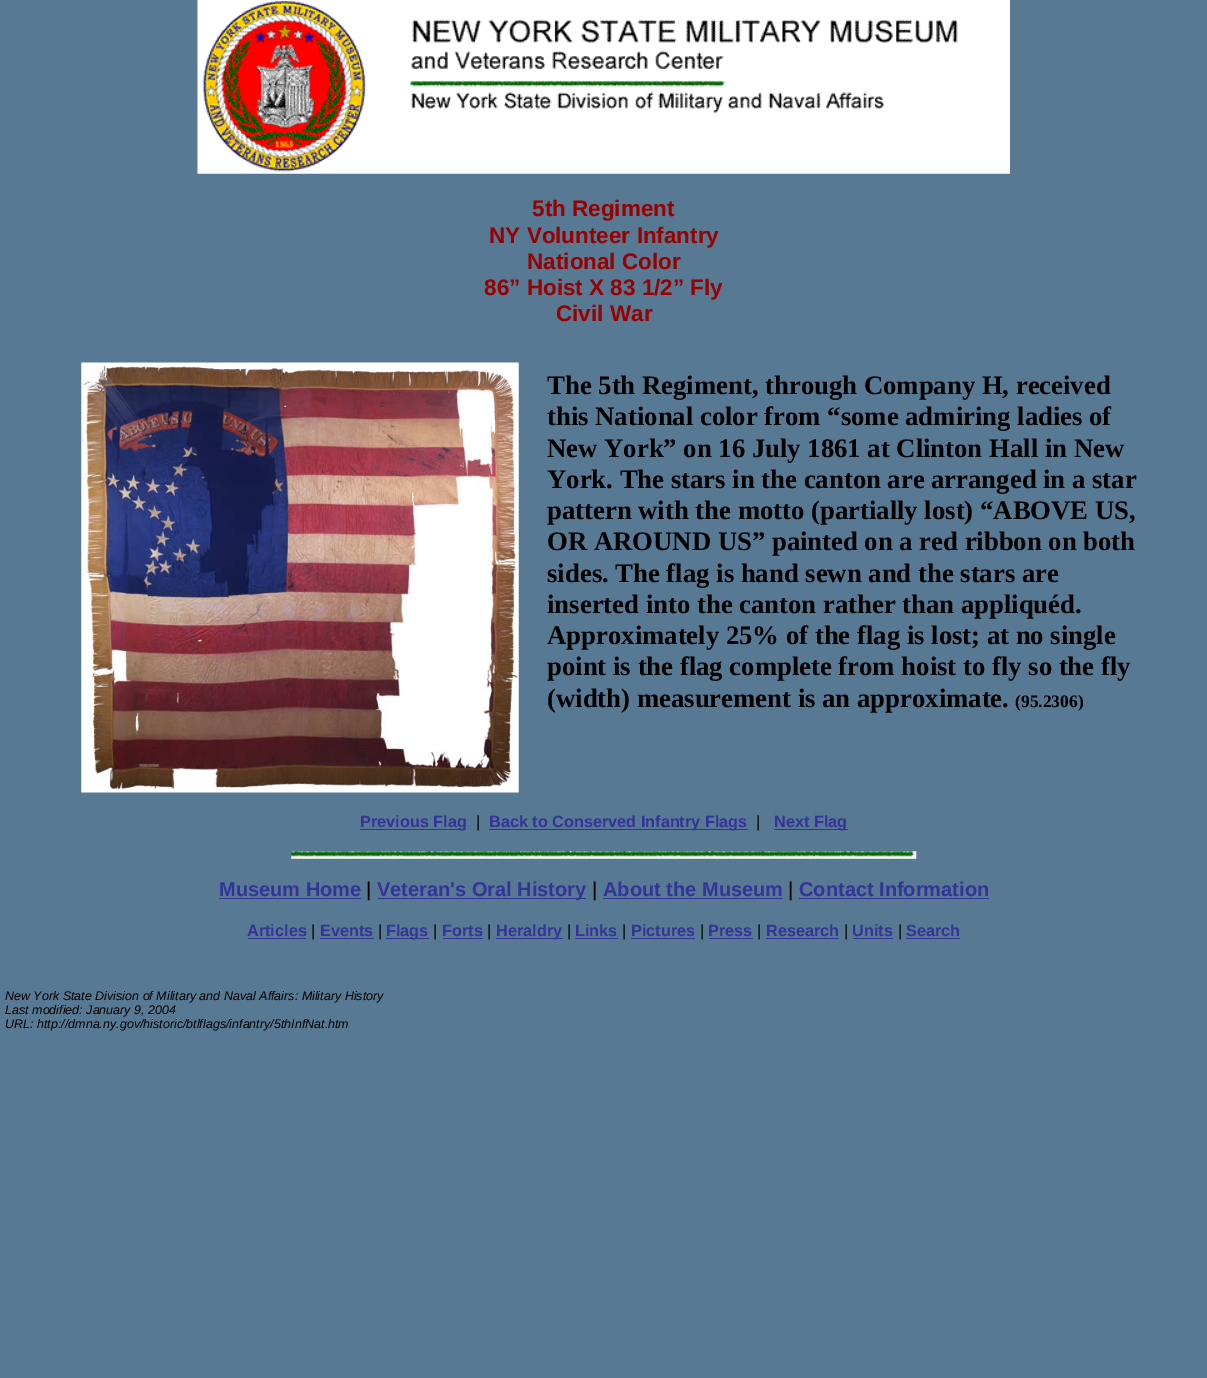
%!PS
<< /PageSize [1207 1378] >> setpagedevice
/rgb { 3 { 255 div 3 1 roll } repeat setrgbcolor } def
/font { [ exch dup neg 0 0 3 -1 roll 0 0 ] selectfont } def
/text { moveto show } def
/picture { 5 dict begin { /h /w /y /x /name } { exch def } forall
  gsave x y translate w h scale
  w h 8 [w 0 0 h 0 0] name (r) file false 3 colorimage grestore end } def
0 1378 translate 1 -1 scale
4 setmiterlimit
88 121 147 rgb
0 0 1207 1378 rectfill
(img_01.rgb) 197 0 813 174 picture
(img_02.rgb) 81 362 438 431 picture
51 51 153 rgb
360 829 106 1 rectfill
489 829 259 1 rectfill
774 829 74 1 rectfill
(img_03.rgb) 291 851 626 8 picture
219 898 142 1 rectfill
378 898 208 1 rectfill
603 898 180 1 rectfill
799 898 190 1 rectfill
248 938 58 1 rectfill
320 938 54 1 rectfill
386 938 43 1 rectfill
443 938 40 1 rectfill
496 938 67 1 rectfill
575 938 43 1 rectfill
631 938 64 1 rectfill
709 938 44 1 rectfill
766 938 73 1 rectfill
853 938 40 1 rectfill
906 938 54 1 rectfill
/LiberationSans-Bold 22.5 font
153 0 0 rgb
(5th Regiment) 532 216 text
(NY Volunteer Infantry) 489 243 text
(National Color) 527 269 text
(86” Hoist X 83 1/2” Fly) 484 295 text
(Civil War) 556 321 text
/LiberationSerif-Bold 26.7 font
0 0 0 rgb
(The 5th Regiment, through Company H, received) 547 394 text
(this National color from “some admiring ladies of) 547 425 text
(New York” on 16 July 1861 at Clinton Hall in New) 547 457 text
(York. The stars in the canton are arranged in a star) 547 488 text
(pattern with the motto \(partially lost\) “ABOVE US,) 547 519 text
(OR AROUND US” painted on a red ribbon on both) 547 550 text
(sides. The flag is hand sewn and the stars are) 547 582 text
(inserted into the canton rather than appliquéd.) 547 613 text
(Approximately 25% of the flag is lost; at no single) 547 644 text
(point is the flag complete from hoist to fly so the fly) 547 675 text
(\(width\) measurement is an approximate.) 547 707 text
/LiberationSerif-Bold 17.5 font
(\(95.2306\)) 1015 707 text
/LiberationSans-Bold 16.25 font
51 51 153 rgb
(Previous Flag) 360 827 text
/LiberationSans-Regular 16.25 font
0 0 0 rgb
(|) 476 827 text
/LiberationSans-Bold 16.25 font
51 51 153 rgb
(Back to Conserved Infantry Flags) 489 827 text
/LiberationSans-Regular 16.25 font
0 0 0 rgb
(|) 756 827 text
/LiberationSans-Bold 16.25 font
51 51 153 rgb
(Next Flag) 774 827 text
/LiberationSans-Bold 20 font
(Museum Home) 219 896 text
/LiberationSans-Regular 20 font
0 0 0 rgb
(|) 366 896 text
/LiberationSans-Bold 20 font
51 51 153 rgb
(Veteran's Oral History) 377 896 text
/LiberationSans-Regular 20 font
0 0 0 rgb
(|) 592 896 text
/LiberationSans-Bold 20 font
51 51 153 rgb
(About the Museum) 603 896 text
/LiberationSans-Regular 20 font
0 0 0 rgb
(|) 788 896 text
/LiberationSans-Bold 20 font
51 51 153 rgb
(Contact Information) 799 896 text
/LiberationSans-Bold 16.25 font
(Articles) 247 936 text
/LiberationSans-Regular 16.25 font
0 0 0 rgb
(|) 311 936 text
/LiberationSans-Bold 16.25 font
51 51 153 rgb
(Events) 320 936 text
/LiberationSans-Regular 16.25 font
0 0 0 rgb
(|) 378 936 text
/LiberationSans-Bold 16.25 font
51 51 153 rgb
(Flags) 386 936 text
/LiberationSans-Regular 16.25 font
0 0 0 rgb
(|) 433 936 text
/LiberationSans-Bold 16.25 font
51 51 153 rgb
(Forts) 442 936 text
/LiberationSans-Regular 16.25 font
0 0 0 rgb
(|) 487 936 text
/LiberationSans-Bold 16.25 font
51 51 153 rgb
(Heraldry) 496 936 text
/LiberationSans-Regular 16.25 font
0 0 0 rgb
(|) 567 936 text
/LiberationSans-Bold 16.25 font
51 51 153 rgb
(Links) 575 936 text
/LiberationSans-Regular 16.25 font
0 0 0 rgb
(|) 622 936 text
/LiberationSans-Bold 16.25 font
51 51 153 rgb
(Pictures) 631 936 text
/LiberationSans-Regular 16.25 font
0 0 0 rgb
(|) 700 936 text
/LiberationSans-Bold 16.25 font
51 51 153 rgb
(Press) 708 936 text
/LiberationSans-Regular 16.25 font
0 0 0 rgb
(|) 757 936 text
/LiberationSans-Bold 16.25 font
51 51 153 rgb
(Research) 766 936 text
/LiberationSans-Regular 16.25 font
0 0 0 rgb
(|) 844 936 text
/LiberationSans-Bold 16.25 font
51 51 153 rgb
(Units) 852 936 text
/LiberationSans-Regular 16.25 font
0 0 0 rgb
(|) 898 936 text
/LiberationSans-Bold 16.25 font
51 51 153 rgb
(Search) 906 936 text
/LiberationSans-Italic 12.5 font
0 0 0 rgb
(New York State Division of Military and Naval Affairs: Military History) 5 1000 text
(Last modified: January 9, 2004) 5 1014 text
(URL: http://dmna.ny.gov/historic/btlflags/infantry/5thInfNat.htm) 5 1028 text
showpage
